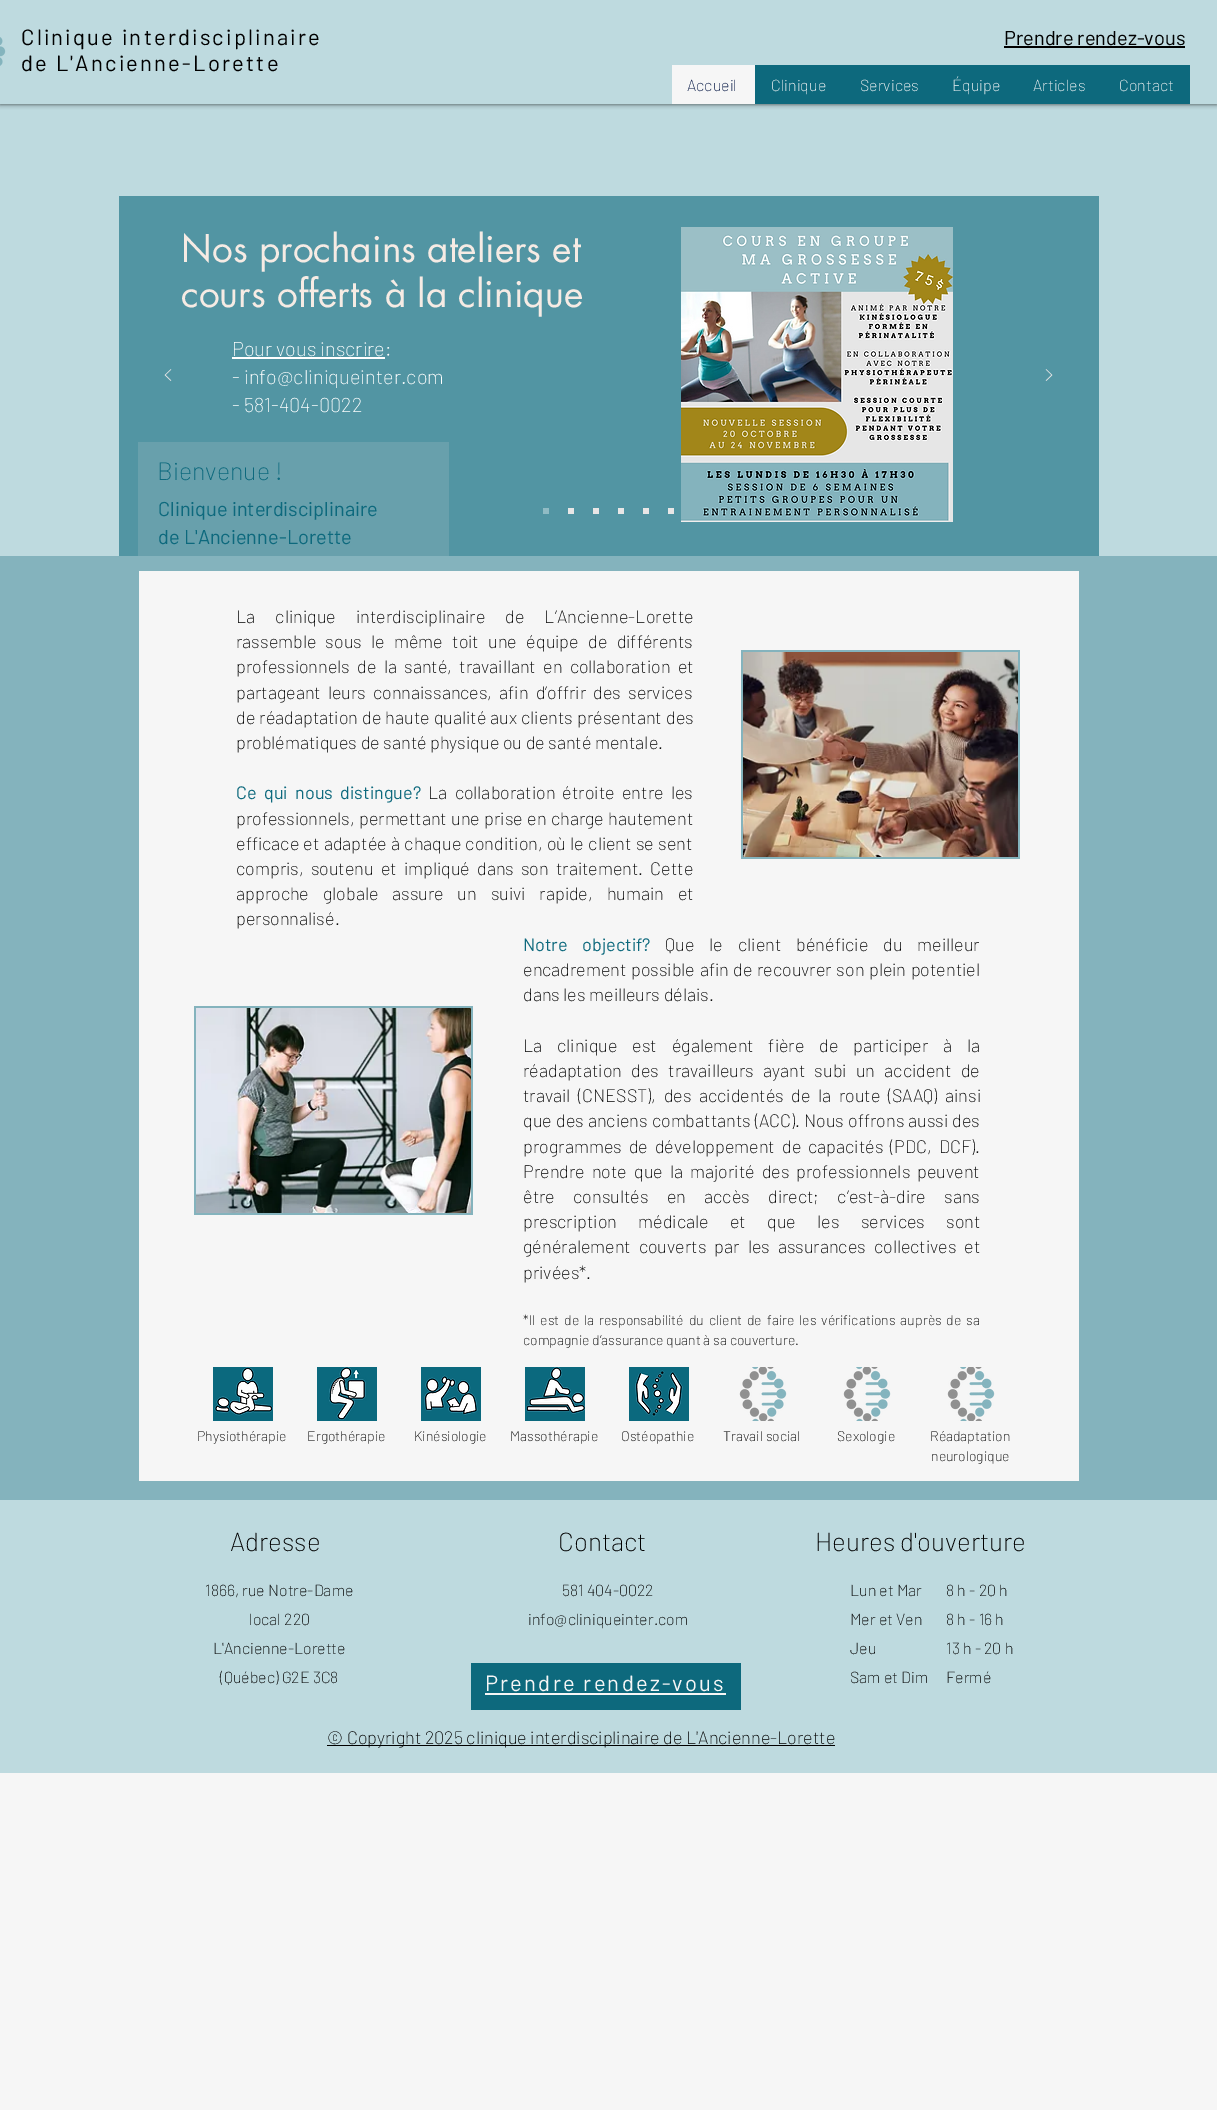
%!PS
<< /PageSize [1217 2110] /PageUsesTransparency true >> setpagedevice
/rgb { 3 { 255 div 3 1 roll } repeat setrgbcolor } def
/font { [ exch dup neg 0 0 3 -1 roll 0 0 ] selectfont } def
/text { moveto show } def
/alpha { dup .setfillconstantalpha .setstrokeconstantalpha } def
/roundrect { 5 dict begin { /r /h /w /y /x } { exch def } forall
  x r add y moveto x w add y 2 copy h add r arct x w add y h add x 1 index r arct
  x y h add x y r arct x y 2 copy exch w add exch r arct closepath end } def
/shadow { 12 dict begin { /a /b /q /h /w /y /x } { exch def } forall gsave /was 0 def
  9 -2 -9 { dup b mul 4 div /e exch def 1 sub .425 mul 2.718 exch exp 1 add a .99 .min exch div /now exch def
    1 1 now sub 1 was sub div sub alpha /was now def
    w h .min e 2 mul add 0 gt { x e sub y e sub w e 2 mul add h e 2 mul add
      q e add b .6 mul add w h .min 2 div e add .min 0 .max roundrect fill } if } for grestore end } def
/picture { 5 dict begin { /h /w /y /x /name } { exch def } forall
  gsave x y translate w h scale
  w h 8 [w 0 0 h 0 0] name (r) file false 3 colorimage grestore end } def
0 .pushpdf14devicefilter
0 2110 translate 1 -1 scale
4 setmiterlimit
246 246 246 rgb
0 0 1217 2110 rectfill
190 218 223 rgb
0 104 1217 452 rectfill
0 0 0 rgb
0 0 1217 104 0 2.5 0.7 shadow
190 218 223 rgb
0 0 1217 104 rectfill
(img_01.rgb) 0 37 6 29 picture
0 0 0 rgb
1004 46 181 2 rectfill
13 105 125 rgb
755 65 435 39 rectfill
246 246 246 rgb
672 65 83 39 rectfill
82 149 163 rgb
119 196 980 360 rectfill
(img_02.rgb) 164 369 8 12 picture
(img_03.rgb) 681 227 272 295 picture
255 255 255 rgb
232 357 153 2 rectfill
(img_04.rgb) 1045 369 8 12 picture
144 187 196 rgb
543 508 6 6 rectfill
232 230 230 rgb
568 508 6 6 rectfill
593 508 6 6 rectfill
618 508 6 6 rectfill
643 508 6 6 rectfill
668 508 6 6 rectfill
104 160 172 rgb
138 442 311 114 rectfill
132 179 189 rgb
0 556 1217 944 rectfill
246 246 246 rgb
139 571 940 910 rectfill
132 179 189 rgb
741 650 279 209 rectfill
(img_05.rgb) 743 652 275 205 picture
194 1006 279 209 rectfill
(img_06.rgb) 196 1008 275 205 picture
(img_07.rgb) 213 1367 60 54 picture
(img_08.rgb) 317 1367 60 54 picture
(img_09.rgb) 421 1367 60 54 picture
(img_10.rgb) 525 1367 60 54 picture
(img_11.rgb) 629 1367 60 54 picture
(img_12.rgb) 739 1367 48 54 picture
(img_12.rgb) 843 1367 48 54 picture
(img_12.rgb) 947 1367 48 54 picture
190 218 223 rgb
0 1500 1217 273 rectfill
13 105 125 rgb
471 1663 270 47 rectfill
246 246 246 rgb
485 1693 241 2 rectfill
0 0 0 rgb
327 1745 508 1 rectfill
/Barlow-Regular 22 font
21 45 moveto 2.2 0 (Clinique interdisciplinaire) ashow
21 71 moveto 2.2 0 (de L'Ancienne-Lorette) ashow
/Barlow-Regular 20 font
(Prendre rendez-vous) 1004 45 text
/Barlow-ExtraLight 16 font
7 25 69 rgb
(Accueil) 687 91 text
246 246 246 rgb
(Clinique) 771 91 text
(Services) 860 91 text
(Équipe) 952 91 text
(Articles) 1033 91 text
(Contact) 1119 91 text
/futura-Regular 37 font
246 235 228 rgb
(Nos prochains ateliers et) 181 262 text
(cours offerts à la clinique) 181 307 text
/Barlow-ExtraLight 20 font
255 255 255 rgb
(Pour vous inscrire:) 232 356 text
(- info@cliniqueinter.com) 232 384 text
(- 581-404-0022) 232 412 text
/Barlow-ExtraLight 25 font
13 105 125 rgb
(Bienvenue !) 157 480 text
/Barlow-Regular 20 font
(Clinique interdisciplinaire) 158 516 text
(de L'Ancienne-Lorette) 158 544 text
/Barlow-ExtraLight 18 font
0 0 0 rgb
236 623 moveto 16.5 0 32 (La clinique interdisciplinaire de L’Ancienne-Lorette) widthshow
236 648 moveto 5.75 0 32 (rassemble sous le même toit une équipe de différents) widthshow
236 673 moveto 3.75 0 32 (professionnels de la santé, travaillant en collaboration et) widthshow
236 699 moveto 3.5 0 32 (partageant leurs connaissances, afin d’offrir des services) widthshow
236 724 moveto 0.5 0 32 (de réadaptation de haute qualité aux clients présentant des) widthshow
(problématiques de santé physique ou de santé mentale.) 236 749 text
/Barlow-Regular 18 font
13 105 125 rgb
236 799 moveto 3.75 0 32 (Ce qui nous distingue?) widthshow
/Barlow-ExtraLight 18 font
0 0 0 rgb
428 799 moveto 3.75 0 32 (La collaboration étroite entre les) widthshow
236 825 moveto 0.75 0 32 (professionnels, permettant une prise en charge hautement) widthshow
236 850 moveto 0.75 0 32 (efficace et adaptée à chaque condition, où le client se sent) widthshow
236 875 moveto 3.5 0 32 (compris, soutenu et impliqué dans son traitement. Cette) widthshow
236 900 moveto 10.25 0 32 (approche globale assure un suivi rapide, humain et) widthshow
(personnalisé.) 236 925 text
/Barlow-Regular 18 font
13 105 125 rgb
523 951 moveto 11 0 32 (Notre objectif?) widthshow
/Barlow-ExtraLight 18 font
0 0 0 rgb
665 951 moveto 11.5 0 32 (Que le client bénéficie du meilleur) widthshow
523 976 moveto 1 0 32 (encadrement possible afin de recouvrer son plein potentiel) widthshow
(dans les meilleurs délais.) 523 1001 text
523 1052 moveto 11.25 0 32 (La clinique est également fière de participer à la) widthshow
523 1077 moveto 5.75 0 32 (réadaptation des travailleurs ayant subi un accident de) widthshow
523 1102 moveto 4 0 32 (travail \(CNESST\), des accidentés de la route \(SAAQ\) ainsi) widthshow
523 1127 moveto 0.5 0 32 (que des anciens combattants \(ACC\). Nous offrons aussi des) widthshow
523 1153 moveto 3.5 0 32 (programmes de développement de capacités \(PDC, DCF\).) widthshow
523 1178 moveto 3.5 0 32 (Prendre note que la majorité des professionnels peuvent) widthshow
523 1203 moveto 14.75 0 32 (être consultés en accès direct; c’est-à-dire sans) widthshow
523 1228 moveto 17.75 0 32 (prescription médicale et que les services sont) widthshow
523 1253 moveto 4.5 0 32 (généralement couverts par les assurances collectives et) widthshow
(privées*.) 523 1279 text
/Barlow-ExtraLight 14 font
523 1325 moveto 2.1 0 32 (*Il est de la responsabilité du client de faire les vérifications auprès de sa) widthshow
(compagnie d’assurance quant à sa couverture.) 523 1345 text
(Physiothérapie) 197 1441 text
(Ergothérapie) 307 1441 text
(Kinésiologie) 414 1441 text
(Massothérapie) 510 1441 text
(Ostéopathie) 621 1441 text
(Travail social) 723 1441 text
(Sexologie) 837 1441 text
(Réadaptation) 930 1441 text
(neurologique) 931 1461 text
/Barlow-ExtraLight 26 font
(Adresse) 230 1551 text
/Barlow-ExtraLight 16 font
(1866, rue Notre-Dame) 205 1596 text
(local 220) 249 1625 text
(L'Ancienne-Lorette) 213 1654 text
(\(Québec\) G2E 3C8) 220 1683 text
/Barlow-ExtraLight 26 font
(Contact) 558 1551 text
/Barlow-ExtraLight 16 font
(581 404-0022) 562 1596 text
(info@cliniqueinter.com) 528 1625 text
/Barlow-Regular 22 font
246 246 246 rgb
485 1691 moveto 2.2 0 (Prendre rendez-vous) ashow
/Barlow-ExtraLight 26 font
0 0 0 rgb
(Heures d'ouverture) 815 1551 text
/Barlow-ExtraLight 16 font
(Lun et Mar) 850 1596 text
(Mer et Ven) 850 1625 text
(Jeu) 850 1654 text
(Sam et Dim) 850 1683 text
(8 h - 20 h) 946 1596 text
(8 h - 16 h) 946 1625 text
(13 h - 20 h) 946 1654 text
(Fermé) 946 1683 text
/Barlow-ExtraLight 18 font
(© Copyright 2025 clinique interdisciplinaire de L'Ancienne-Lorette) 327 1744 text
.poppdf14devicefilter showpage
